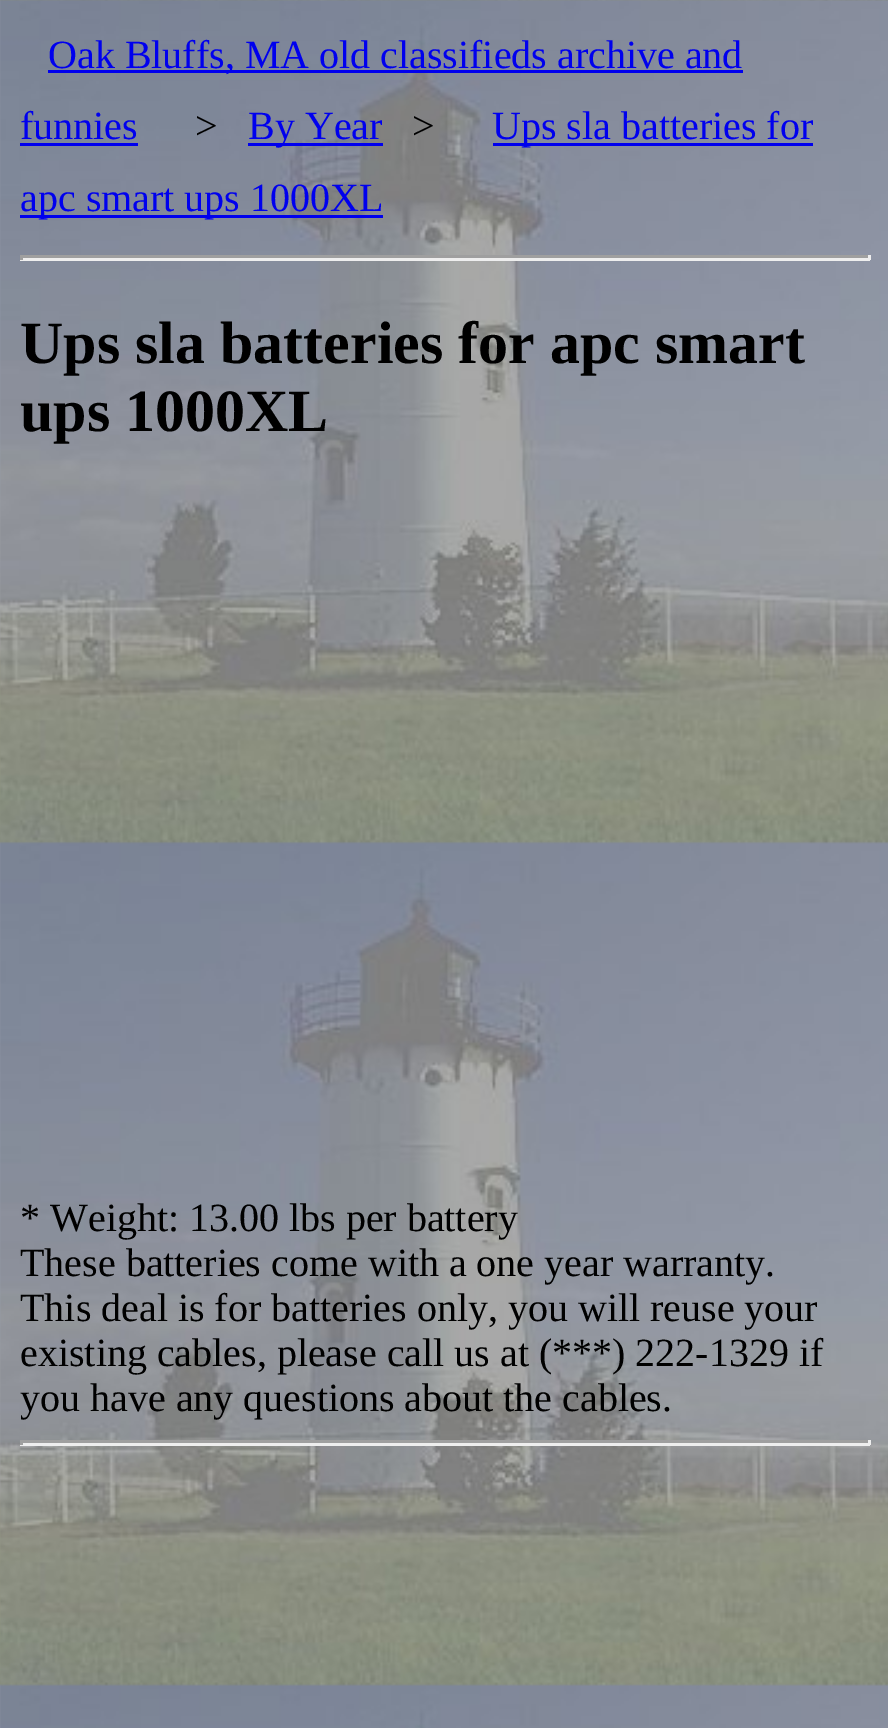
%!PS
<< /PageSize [888 1728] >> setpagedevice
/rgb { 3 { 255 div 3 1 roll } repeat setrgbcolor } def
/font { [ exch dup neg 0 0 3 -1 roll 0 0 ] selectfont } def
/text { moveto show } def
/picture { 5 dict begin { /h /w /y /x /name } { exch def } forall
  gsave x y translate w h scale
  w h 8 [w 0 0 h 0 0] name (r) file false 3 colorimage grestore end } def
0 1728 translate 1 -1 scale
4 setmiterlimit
255 255 255 rgb
0 0 888 1728 rectfill
(img_01.rgb) 0 0 888 1728 picture
0 0 238 rgb
48 70 695 3 rectfill
20 143 118 3 rectfill
248 143 135 3 rectfill
493 143 320 3 rectfill
20 215 363 3 rectfill
159 159 159 rgb
20 255 850 3 rectfill
238 238 238 rgb
868 255 3 5 rectfill
20 258 850 3 rectfill
159 159 159 rgb
20 255 3 5 rectfill
20 1440 850 3 rectfill
238 238 238 rgb
868 1440 3 5 rectfill
20 1443 850 3 rectfill
159 159 159 rgb
20 1440 3 5 rectfill
/LiberationSerif-Regular 40 font
0 0 238 rgb
(Oak Bluffs, MA old classifieds archive and) 48 68 text
(funnies) 20 139 text
0 0 0 rgb
(>) 195 139 text
0 0 238 rgb
(By Year) 248 139 text
0 0 0 rgb
(>) 412 139 text
0 0 238 rgb
(Ups sla batteries for) 492 139 text
(apc smart ups 1000XL) 20 211 text
/LiberationSerif-Bold 60 font
0 0 0 rgb
(Ups sla batteries for apc smart) 20 363 text
(ups 1000XL) 20 431 text
/LiberationSerif-Regular 40 font
(* Weight: 13.00 lbs per battery) 20 1231 text
(These batteries come with a one year warranty.) 20 1276 text
(This deal is for batteries only, you will reuse your) 20 1321 text
(existing cables, please call us at \(***\) 222-1329 if) 20 1366 text
(you have any questions about the cables.) 20 1411 text
showpage
